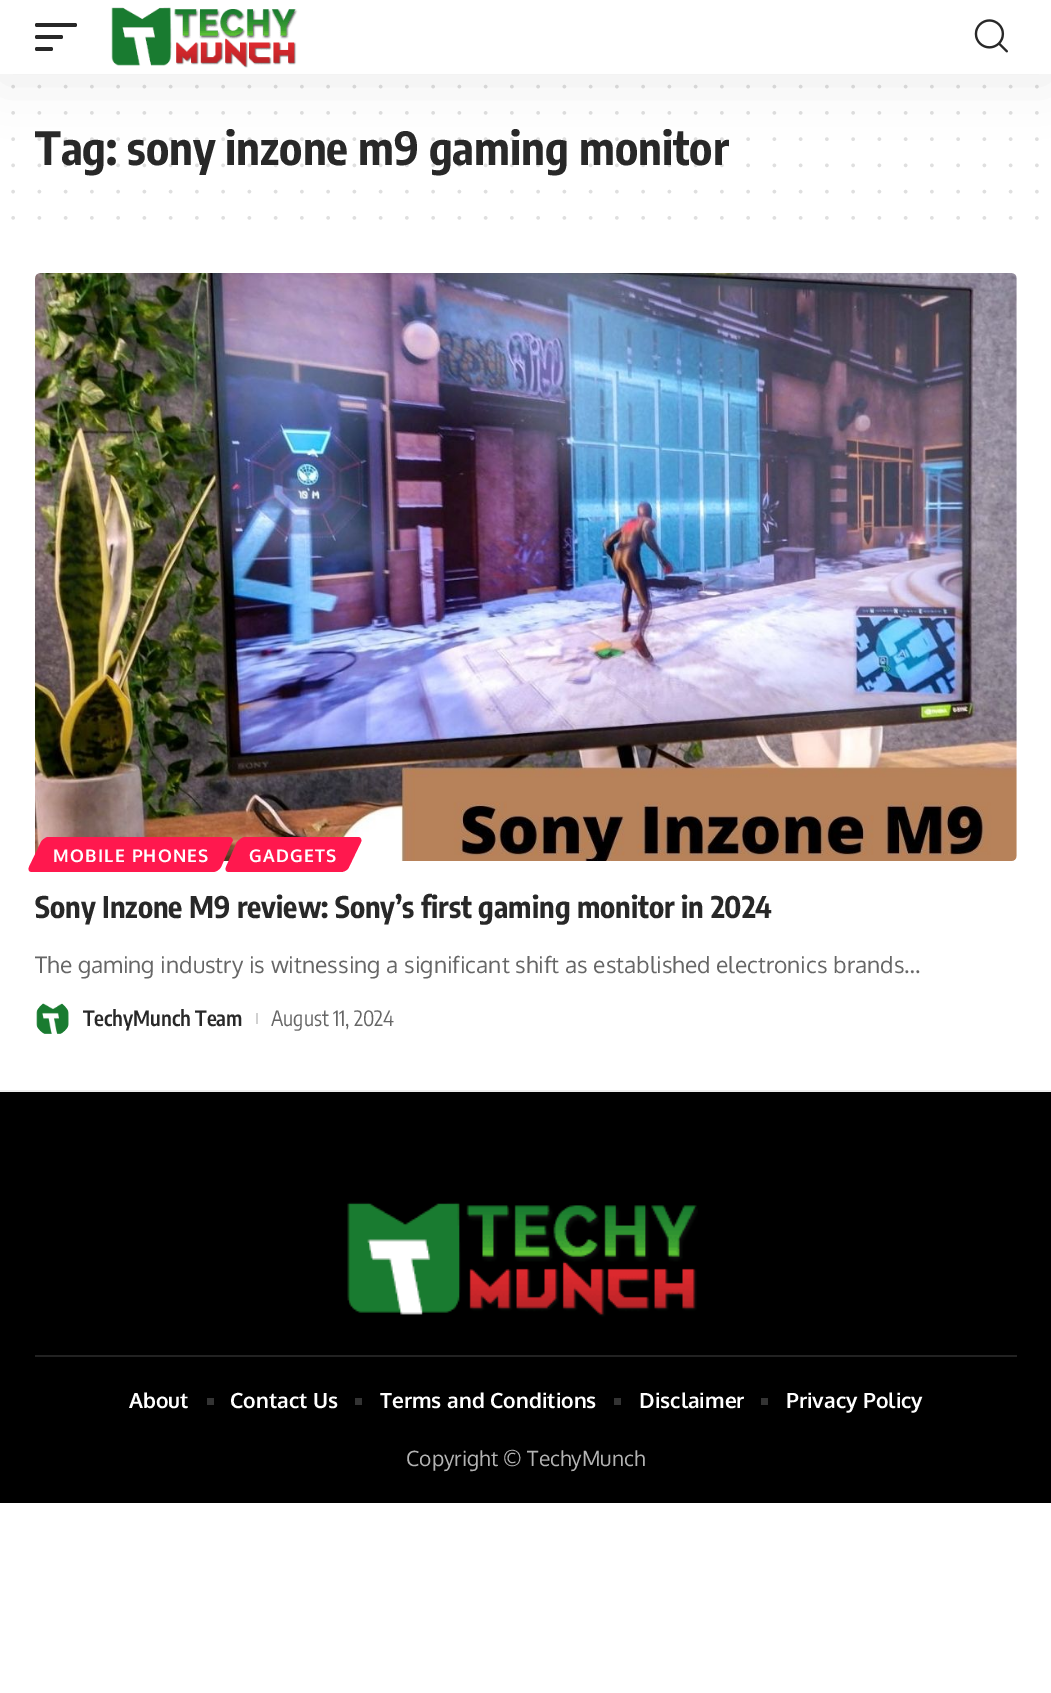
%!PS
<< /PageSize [1051 1693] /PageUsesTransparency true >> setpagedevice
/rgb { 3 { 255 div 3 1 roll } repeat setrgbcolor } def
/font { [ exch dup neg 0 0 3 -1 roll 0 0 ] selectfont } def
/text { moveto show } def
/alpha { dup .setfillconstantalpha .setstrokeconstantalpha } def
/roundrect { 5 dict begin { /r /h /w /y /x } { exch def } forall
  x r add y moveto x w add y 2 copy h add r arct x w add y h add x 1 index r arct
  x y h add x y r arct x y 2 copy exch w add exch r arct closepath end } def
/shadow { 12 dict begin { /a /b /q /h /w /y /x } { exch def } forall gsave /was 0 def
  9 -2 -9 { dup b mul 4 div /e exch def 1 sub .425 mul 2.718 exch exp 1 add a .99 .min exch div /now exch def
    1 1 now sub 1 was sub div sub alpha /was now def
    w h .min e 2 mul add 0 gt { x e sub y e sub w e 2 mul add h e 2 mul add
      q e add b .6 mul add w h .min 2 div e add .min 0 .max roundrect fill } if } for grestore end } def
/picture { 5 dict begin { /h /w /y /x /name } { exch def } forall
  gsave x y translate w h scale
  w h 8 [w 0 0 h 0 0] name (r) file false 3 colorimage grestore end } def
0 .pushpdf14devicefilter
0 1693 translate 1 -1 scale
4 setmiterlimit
255 255 255 rgb
0 0 1051 1693 rectfill
223 223 223 rgb
3.5 setlinewidth
1 setlinecap
[0 26.25] 0 setdash
13.1 86.6 moveto 1024.1 0 rlineto stroke
13.1 112.9 moveto 1024.1 0 rlineto stroke
13.1 191.6 moveto 1024.1 0 rlineto stroke
13.1 217.9 moveto 1024.1 0 rlineto stroke
(img_03.rgb) 35 273 982 588 picture
255 24 78 rgb
48 837 moveto 181 0 rlineto 3 0 5 3 3 5 rcurveto -11 25 rlineto -2 3 -5 5 -8 5 rcurveto -181 0 rlineto -3 0 -4 -2 -3 -5 rcurveto 12 -25 rlineto 1 -2 5 -5 7 -5 rcurveto closepath fill
245 837 moveto 113 0 rlineto 3 0 4 3 3 5 rcurveto -12 25 rlineto -1 3 -5 5 -8 5 rcurveto -112 0 rlineto -3 0 -4 -2 -3 -5 rcurveto 11 -25 rlineto 2 -2 5 -5 8 -5 rcurveto closepath fill
(img_04.rgb) 36 1003 33 31 picture
209 209 209 rgb
256 1013 2 11 rectfill
237 237 237 rgb
0 1090 1051 2 rectfill
0 0 0 rgb
0 1092 1051 411 rectfill
(img_05.rgb) 347 1202 351 115 picture
34 34 34 rgb
35 1355 982 2 rectfill
51 51 51 rgb
207 1398 7 7 rectfill
355 1398 7 7 rectfill
614 1398 7 7 rectfill
761 1398 7 7 rectfill
/EncodeSansCondensed-Bold 45.5 font
40 40 40 rgb
(Tag: sony inzone m9 gaming monitor) 35 165 text
0.15 alpha
13.1 139.1 moveto 1024.1 0 rlineto stroke
1 alpha
0 0 0 rgb
0 7 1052 74 0 26 0.07 shadow
255 255 255 rgb
0 0 1051 74 rectfill
(img_02.rgb) 974 19 34 34 picture
40 40 40 rgb
35 47 18 4 2 roundrect fill
35 35 28 4 2 roundrect fill
35 23 42 4 2 roundrect fill
(img_01.rgb) 111 7 187 61 picture
0.15 alpha
13.1 165.4 moveto 1024.1 0 rlineto stroke
/Oxygen-Bold 17.5 font
1 alpha
255 255 255 rgb
53 862 moveto 1.25 0 (MOBILE PHONES) ashow
249 862 moveto 1.25 0 (GADGETS) ashow
/EncodeSansCondensed-Bold 29.75 font
40 40 40 rgb
(Sony Inzone M9 review: Sony’s first gaming monitor in 2024) 35 918 text
/Oxygen-Regular 22.75 font
102 102 102 rgb
(The gaming industry is witnessing a significant shift as established electronics brands…) 35 973 text
/EncodeSansCondensed-SemiBold 21 font
40 40 40 rgb
(TechyMunch Team) 83 1026 text
/EncodeSansCondensed-Regular 21 font
102 102 102 rgb
(August 11, 2024) 271 1026 text
/Oxygen-Bold 21 font
255 255 255 rgb
(About) 129 1408 text
(Contact Us) 230 1408 text
(Terms and Conditions) 380 1408 text
(Disclaimer) 639 1408 text
(Privacy Policy) 786 1408 text
/Oxygen-Regular 21 font
179 179 179 rgb
(Copyright © TechyMunch) 406 1466 text
.poppdf14devicefilter showpage
